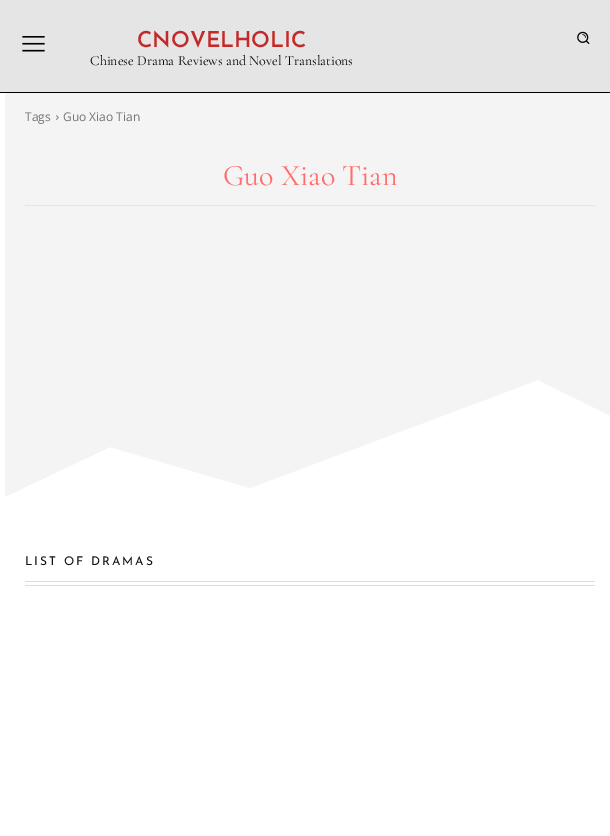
%!PS
<< /PageSize [610 836] >> setpagedevice
/rgb { 3 { 255 div 3 1 roll } repeat setrgbcolor } def
/font { [ exch dup neg 0 0 3 -1 roll 0 0 ] selectfont } def
/text { moveto show } def
/picture { 5 dict begin { /h /w /y /x /name } { exch def } forall
  gsave x y translate w h scale
  w h 8 [w 0 0 h 0 0] name (r) file false 3 colorimage grestore end } def
0 836 translate 1 -1 scale
4 setmiterlimit
255 255 255 rgb
0 0 610 836 rectfill
229 229 229 rgb
0 0 610 92 rectfill
0 0 0 rgb
0 92 610 1 rectfill
(img_01.rgb) 22 36 23 16 picture
(img_02.rgb) 577 31 13 13 picture
244 244 244 rgb
5 93 605 280 rectfill
gsave
5 373 605 200 rectclip
-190 223 moveto 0 273 rlineto 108 42 rlineto 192 -91 rlineto 140 41 rlineto 288 -108 rlineto 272 134 rlineto 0 -291 rlineto closepath fill
grestore
(img_03.rgb) 56 115 3 5 picture
229 229 229 rgb
25 205 570 1 rectfill
221 221 221 rgb
25 581 570 1 rectfill
25 585 570 1 rectfill
/JosefinSans-SemiBold 22 font
196 41 41 rgb
(CNOVELHOLIC) 137 47 text
/CormorantGaramond-Regular 14 font
0 0 0 rgb
(Chinese Drama Reviews and Novel Translations) 90 65 text
/OpenSans-Regular 12 font
116 116 116 rgb
(Tags) 25 121 text
(Guo Xiao Tian) 63 121 text
/CormorantGaramond-Regular 30 font
255 109 109 rgb
(Guo Xiao Tian) 223 185 text
/JosefinSans-Regular 12 font
17 17 17 rgb
25 565 moveto 2 0 (LIST OF DRAMAS) ashow
showpage
